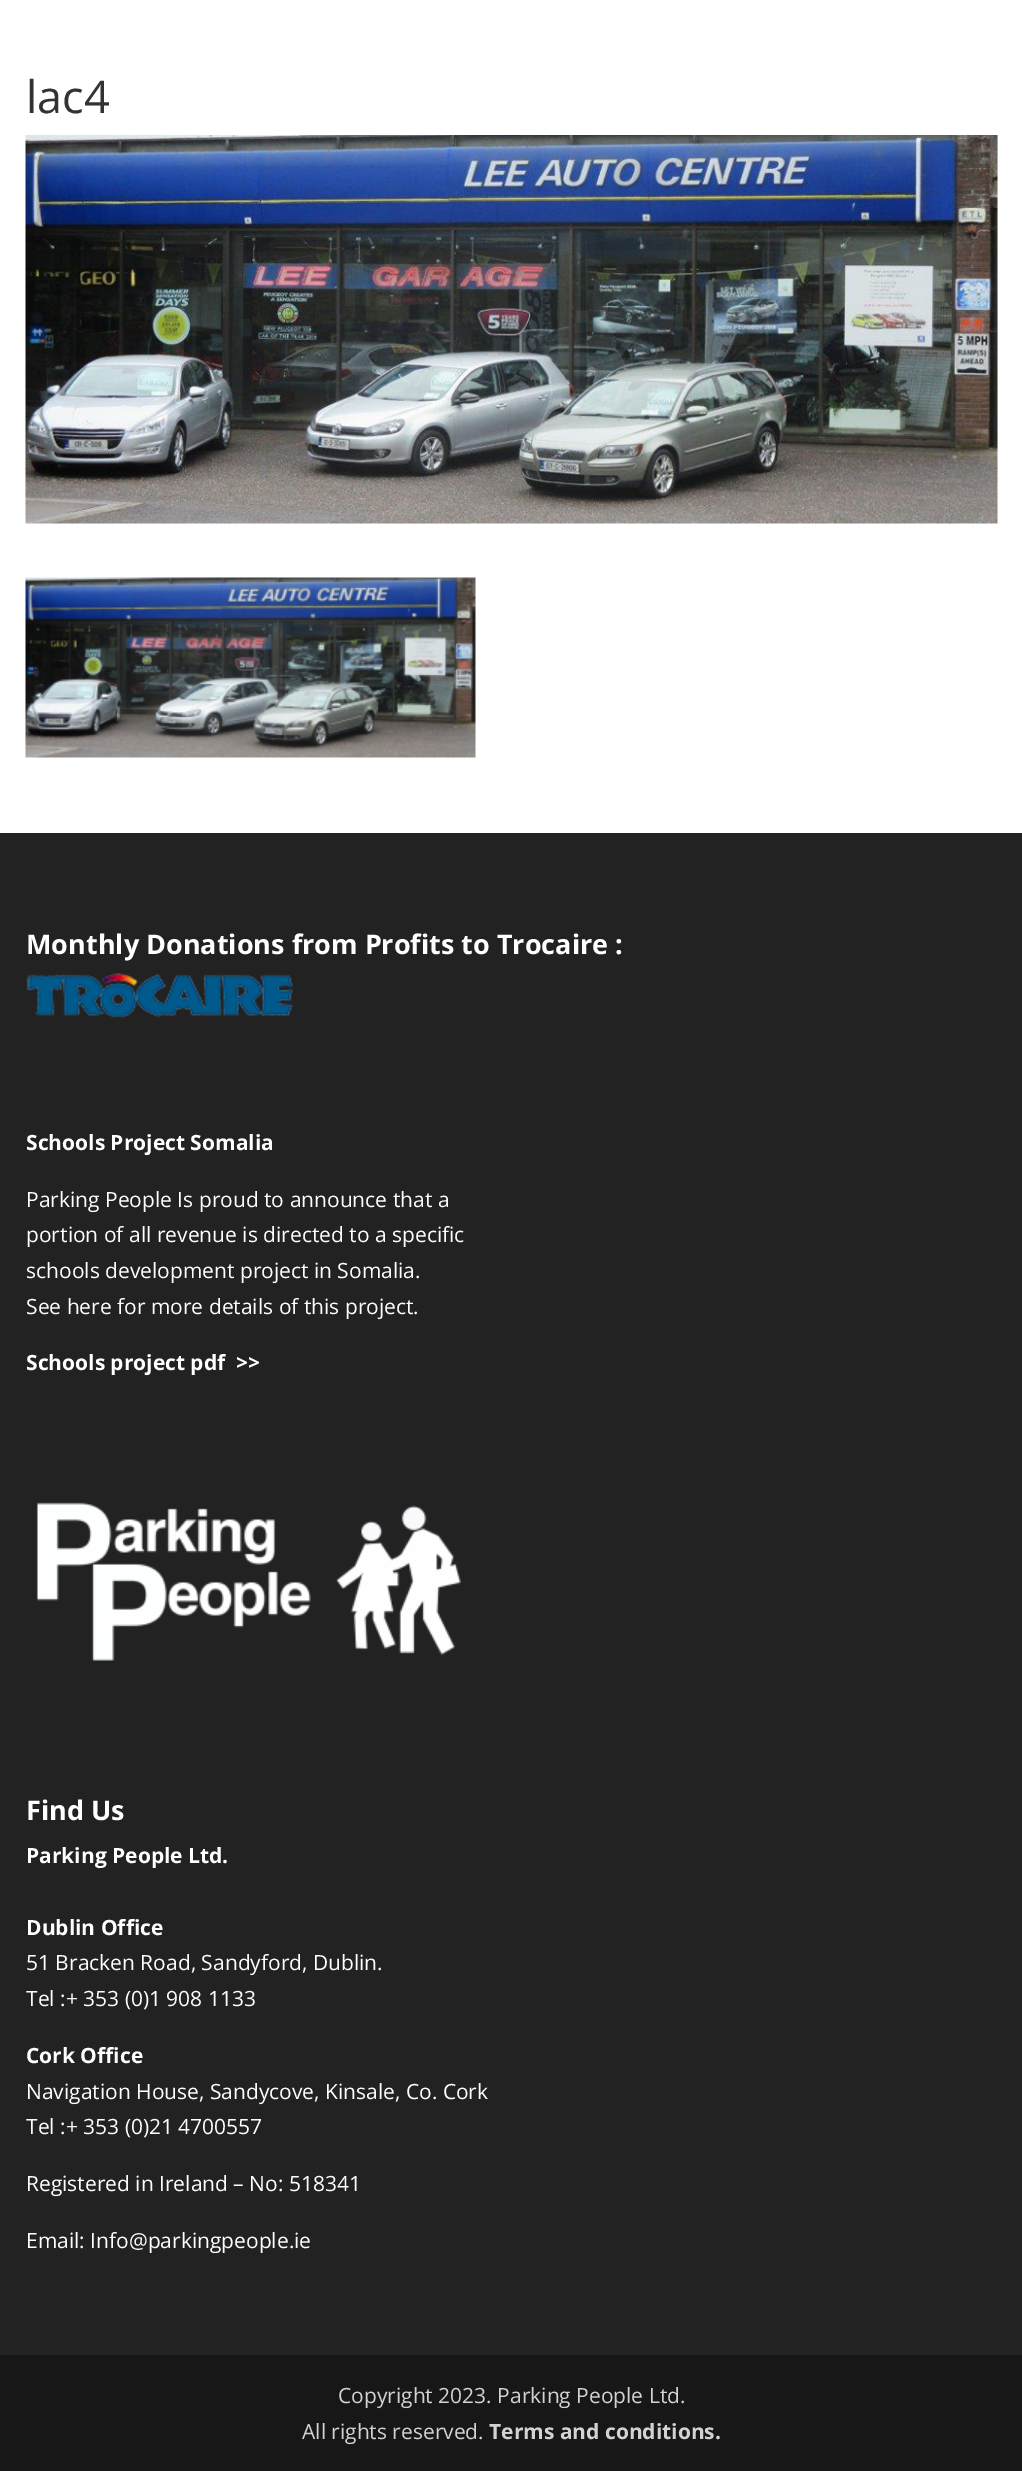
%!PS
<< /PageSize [1022 2471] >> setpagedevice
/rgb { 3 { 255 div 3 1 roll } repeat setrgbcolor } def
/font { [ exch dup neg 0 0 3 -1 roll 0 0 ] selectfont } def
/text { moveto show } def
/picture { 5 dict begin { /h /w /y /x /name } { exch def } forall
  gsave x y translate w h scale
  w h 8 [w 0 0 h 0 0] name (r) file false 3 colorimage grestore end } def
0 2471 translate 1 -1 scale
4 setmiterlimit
255 255 255 rgb
0 0 1022 2471 rectfill
(img_01.rgb) 25 135 973 389 picture
(img_02.rgb) 25 577 451 181 picture
34 34 34 rgb
0 833 1022 1522 rectfill
(img_03.rgb) 26 973 267 45 picture
(img_04.rgb) 36 1502 425 159 picture
23 23 23 rgb
0 2355 1022 116 rectfill
/OpenSans-Regular 45 font
51 51 51 rgb
(lac4) 26 113 text
/OpenSans-Bold 27 font
255 255 255 rgb
(Monthly Donations from Profits to Trocaire :) 26 954 text
/OpenSans-Bold 21 font
(Schools Project Somalia) 26 1150 text
/OpenSans-Regular 21 font
(Parking People Is proud to announce that a) 26 1207 text
(portion of all revenue is directed to a specific) 26 1242 text
(schools development project in Somalia.) 26 1278 text
(See here for more details of this project.) 26 1314 text
/OpenSans-Bold 21 font
(Schools project pdf  >>) 26 1370 text
/OpenSans-Bold 27 font
(Find Us) 26 1820 text
/OpenSans-Bold 21 font
(Parking People Ltd.) 26 1863 text
(Dublin Office) 26 1935 text
/OpenSans-Regular 21 font
(51 Bracken Road, Sandyford, Dublin.) 26 1970 text
(Tel :+ 353 \(0\)1 908 1133) 26 2006 text
/OpenSans-Bold 21 font
(Cork Office) 26 2063 text
/OpenSans-Regular 21 font
(Navigation House, Sandycove, Kinsale, Co. Cork) 26 2099 text
(Tel :+ 353 \(0\)21 4700557) 26 2134 text
(Registered in Ireland – No: 518341) 26 2191 text
(Email: Info@parkingpeople.ie) 26 2248 text
211 211 211 rgb
(Copyright 2023. Parking People Ltd.) 338 2403 text
(All rights reserved.) 302 2439 text
/OpenSans-Bold 21 font
(Terms and conditions.) 489 2439 text
showpage
